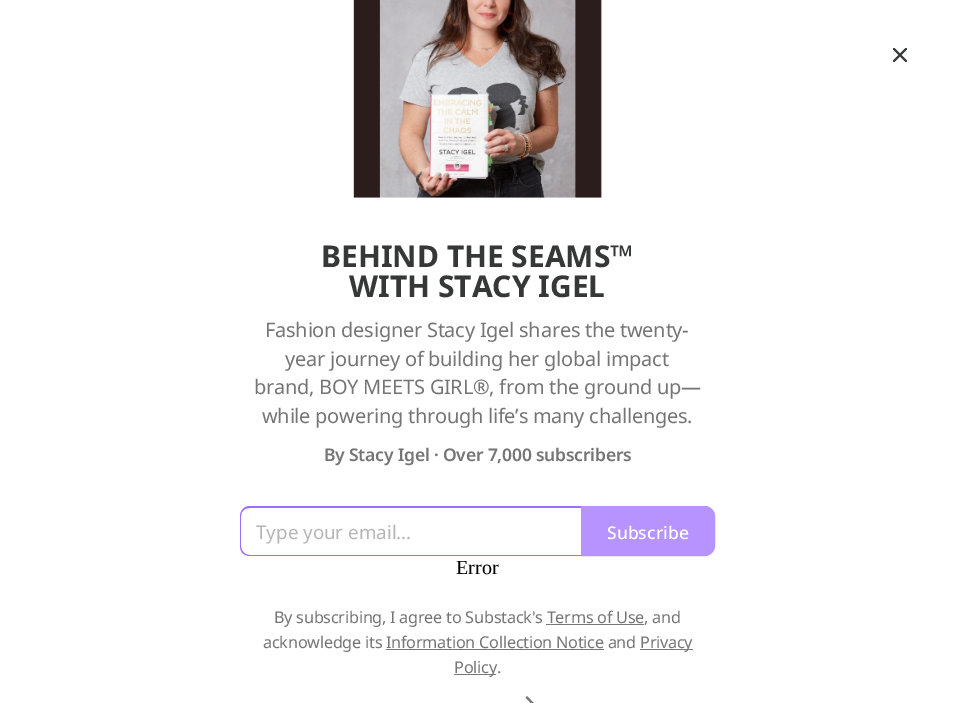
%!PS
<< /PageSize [955 703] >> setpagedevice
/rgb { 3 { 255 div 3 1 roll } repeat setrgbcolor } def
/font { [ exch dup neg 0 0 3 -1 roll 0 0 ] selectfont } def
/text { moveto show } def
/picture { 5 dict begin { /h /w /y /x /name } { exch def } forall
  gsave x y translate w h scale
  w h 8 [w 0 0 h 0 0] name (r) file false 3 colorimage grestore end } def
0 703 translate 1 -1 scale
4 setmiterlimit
255 255 255 rgb
0 0 955 703 rectfill
(img_01.rgb) 353 0 249 198 picture
54 55 55 rgb
2.1 setlinewidth
1 setlinecap
1 setlinejoin
906 49 moveto -12 12 rlineto 894 49 moveto 12 12 rlineto stroke
157 111 255 rgb
250 506 moveto 331 0 rlineto 0 50 rlineto -331 0 rlineto -6 0 -10 -4 -10 -10 rcurveto 0 -30 rlineto 0 -5 4 -10 10 -10 rcurveto closepath 250 508 moveto 331 0 rlineto 0 47 rlineto -331 0 rlineto -5 0 -9 -4 -9 -9 rcurveto 0 -30 rlineto 0 -5 4 -8 9 -8 rcurveto closepath eofill
182 147 255 rgb
581.5 506.5 moveto 123.5 0 rlineto 5 0 9.5 4.5 9.5 9.5 rcurveto 0 30 rlineto 0 5 -4.5 9.5 -9.5 9.5 rcurveto -123.5 0 rlineto closepath gsave fill grestore
1 setlinewidth
0 setlinecap
0 setlinejoin
stroke
119 119 119 rgb
640 649 53 1 rectfill
454 674 42 1 rectfill
117 117 117 rgb
2.1 setlinewidth
1 setlinecap
1 setlinejoin
527 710 moveto 6 -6 rlineto -6 -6.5 rlineto stroke
/NotoSans-Bold 30 font
54 55 55 rgb
(BEHIND THE SEAMS™) 321 267 text
(WITH STACY IGEL) 349 297 text
/NotoSans-Regular 20 font
117 117 117 rgb
265 337 moveto -0.25 0 (Fashion designer Stacy Igel shares the twenty-) ashow
285 366 moveto -0.25 0 (year journey of building her global impact) ashow
254 394 moveto -0.25 0 (brand, BOY MEETS GIRL®, from the ground up—) ashow
262 423 moveto -0.25 0 (while powering through life’s many challenges.) ashow
/NotoSans-SemiBold 17.5 font
324 461 moveto -0.2 0 (By Stacy Igel · Over 7,000 subscribers) ashow
/NotoSans-Regular 18.75 font
182 182 182 rgb
(Type your email...) 256 539 text
/NotoSans-Medium 17.5 font
255 255 255 rgb
(Subscribe) 607 539 text
/LiberationSerif-Regular 20 font
0 0 0 rgb
(Error) 456 574 text
/NotoSans-Regular 16.25 font
117 117 117 rgb
274 623 moveto -0.25 0 (By subscribing, I agree to Substack's Terms of Use, and) ashow
119 119 119 rgb
546 624 98 1 rectfill
117 117 117 rgb
263 648 moveto -0.25 0 (acknowledge its Information Collection Notice and) ashow
640 648 moveto -0.25 0 (Privacy) ashow
119 119 119 rgb
386 649 218 1 rectfill
117 117 117 rgb
454 673 moveto -0.25 0 (Policy.) ashow
showpage
